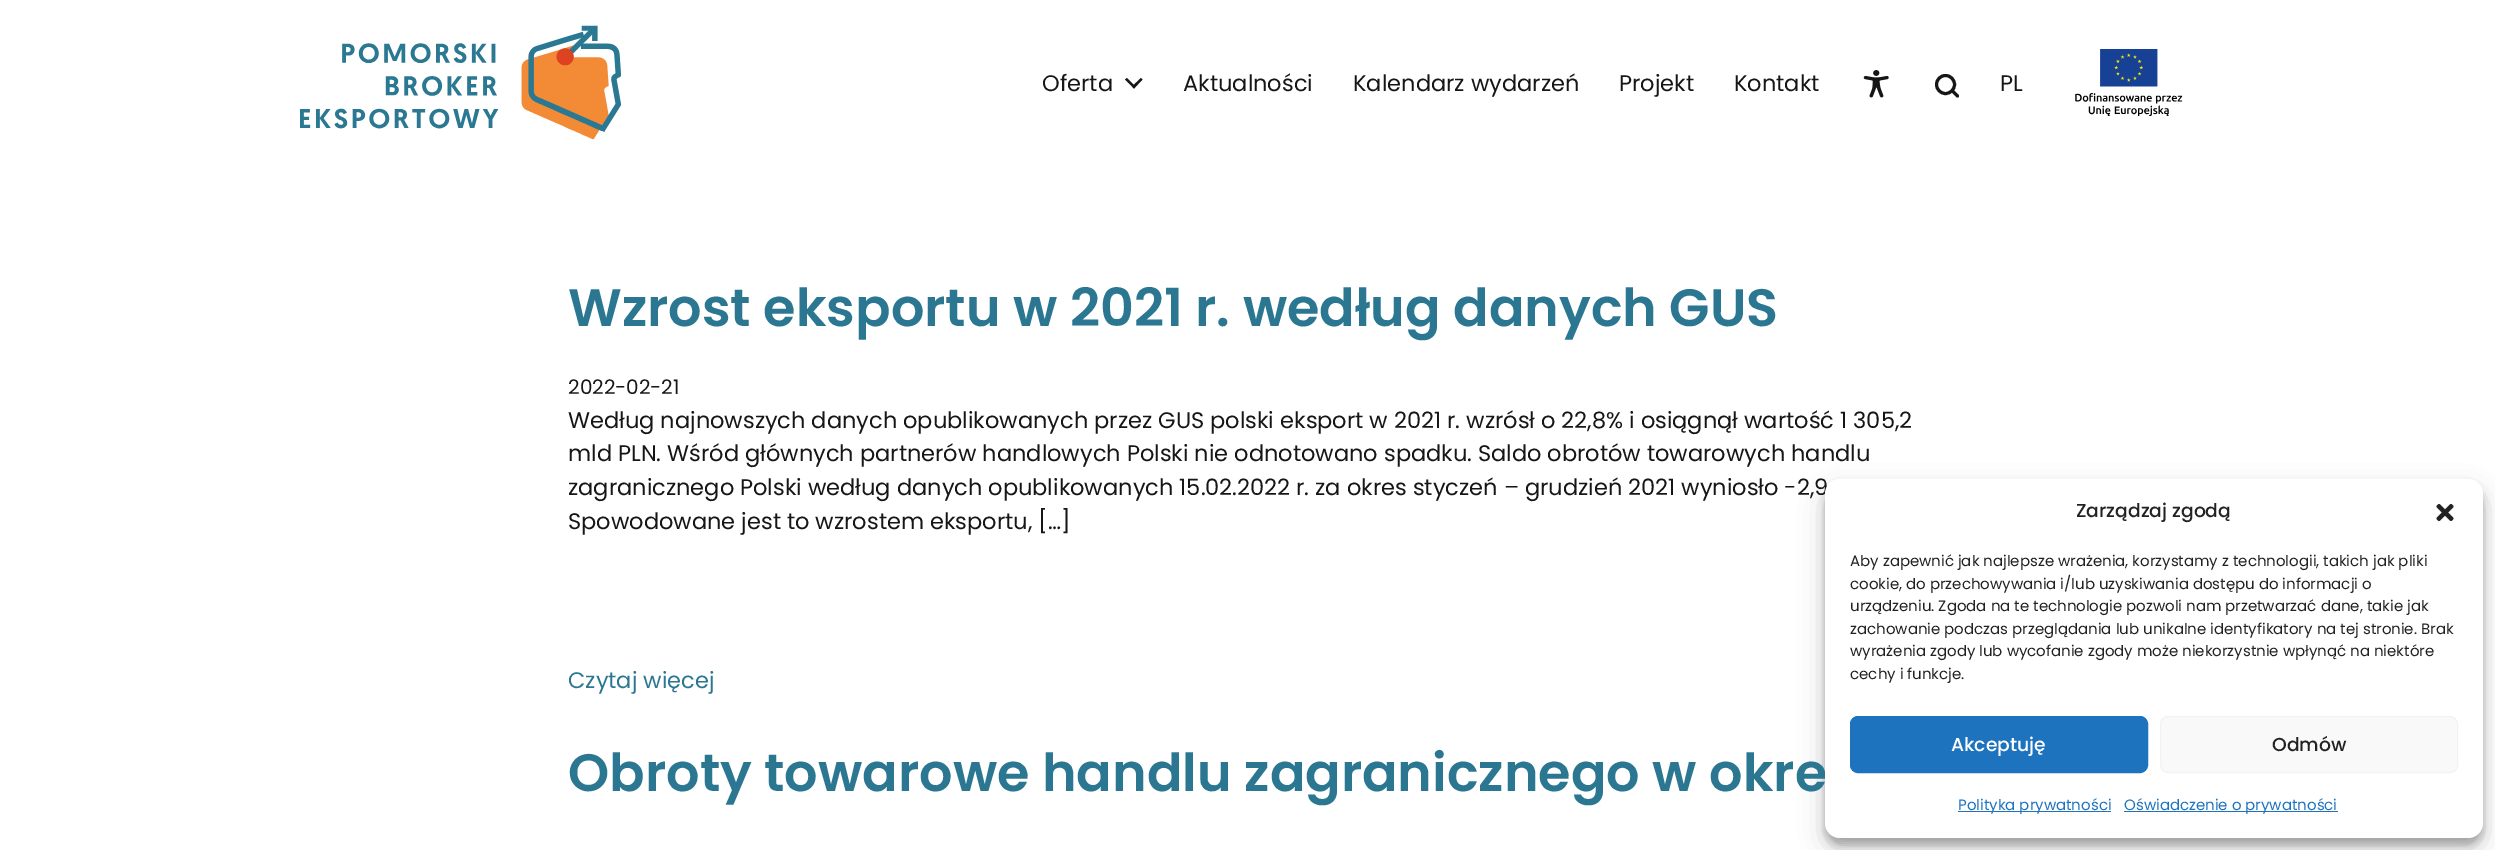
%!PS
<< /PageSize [2495 850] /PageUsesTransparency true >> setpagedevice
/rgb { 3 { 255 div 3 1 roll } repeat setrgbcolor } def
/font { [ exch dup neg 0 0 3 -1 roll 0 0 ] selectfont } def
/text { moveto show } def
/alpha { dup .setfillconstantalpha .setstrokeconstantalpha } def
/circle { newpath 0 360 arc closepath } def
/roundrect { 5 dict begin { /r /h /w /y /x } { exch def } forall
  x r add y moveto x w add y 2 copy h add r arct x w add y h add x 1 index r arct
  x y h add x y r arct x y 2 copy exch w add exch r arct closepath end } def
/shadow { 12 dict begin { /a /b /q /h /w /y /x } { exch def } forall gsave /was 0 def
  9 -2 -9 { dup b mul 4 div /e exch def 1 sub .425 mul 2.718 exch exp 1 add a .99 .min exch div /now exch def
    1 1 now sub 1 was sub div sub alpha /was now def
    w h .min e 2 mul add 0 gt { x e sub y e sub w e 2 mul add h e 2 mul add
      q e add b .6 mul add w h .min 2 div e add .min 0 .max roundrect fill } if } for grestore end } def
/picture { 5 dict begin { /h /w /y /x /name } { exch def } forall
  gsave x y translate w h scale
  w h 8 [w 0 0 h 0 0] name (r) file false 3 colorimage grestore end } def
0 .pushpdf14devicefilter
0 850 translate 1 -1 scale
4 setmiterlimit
255 255 255 rgb
0 0 2495 850 rectfill
(img_01.rgb) 300 25 321 115 picture
22 22 22 rgb
1141 78 moveto 1.5 1.5 rlineto -8.5 9 rlineto -2 -2 rlineto closepath fill
1127 78 moveto 8.5 8.5 rlineto -1.5 2 rlineto -9 -9 rlineto closepath fill
(img_02.rgb) 1863 70 26 28 picture
3 setlinewidth
1945.5 84.5 9 circle stroke
1 setlinecap
1957.5 96 moveto -5 -5 rlineto stroke
(img_03.rgb) 2075 49 108 67 picture
0 0 0 rgb
1825 486 658 359 15 4 0.23 shadow
1825 491 658 359 15 12.5 0.19 shadow
/Poppins-Regular 22.5 font
22 22 22 rgb
(Oferta) 1042 91 text
(Aktualności) 1183 91 text
(Kalendarz wydarzeń) 1353 91 text
(Projekt) 1619 91 text
(Kontakt) 1734 91 text
(PL) 2000 91 text
/Poppins-SemiBold 52.5 font
43 119 145 rgb
(Wzrost eksportu w 2021 r. według danych GUS) 568 326 text
/Poppins-Regular 20 font
22 22 22 rgb
(2022-02-21) 568 394 text
/Poppins-Regular 22.5 font
(Według najnowszych danych opublikowanych przez GUS polski eksport w 2021 r. wzrósł o 22,8% i osiągnął wartość 1 305,2) 568 428 text
(mld PLN. Wśród głównych partnerów handlowych Polski nie odnotowano spadku. Saldo obrotów towarowych handlu) 568 461 text
(zagranicznego Polski według danych opublikowanych 15.02.2022 r. za okres styczeń – grudzień 2021 wyniosło -2,9) 568 495 text
(Spowodowane jest to wzrostem eksportu, […]) 568 529 text
43 119 145 rgb
(Czytaj więcej) 568 688 text
/Poppins-SemiBold 52.5 font
(Obroty towarowe handlu zagranicznego w okre) 568 791 text
255 255 255 rgb
1825 479 658 359 15 roundrect fill
/Poppins-Medium 18.75 font
34 34 34 rgb
(Zarządzaj zgodą) 2076 517 text
(img_04.rgb) 2436 503 18 18 picture
/Poppins-Regular 15 font
(Aby zapewnić jak najlepsze wrażenia, korzystamy z technologii, takich jak pliki) 1850 566 text
(cookie, do przechowywania i/lub uzyskiwania dostępu do informacji o) 1850 589 text
(urządzeniu. Zgoda na te technologie pozwoli nam przetwarzać dane, takie jak) 1850 611 text
(zachowanie podczas przeglądania lub unikalne identyfikatory na tej stronie. Brak) 1850 634 text
(wyrażenia zgody lub wycofanie zgody może niekorzystnie wpłynąć na niektóre) 1850 656 text
(cechy i funkcje.) 1850 679 text
30 115 190 rgb
1850.5 716.5 297 56 7.5 roundrect gsave fill grestore
1 setlinewidth
0 setlinecap
stroke
/Poppins-Medium 18.75 font
255 255 255 rgb
(Akceptuję) 1951 751 text
249 249 249 rgb
2160.5 716.5 297 56 7.5 roundrect gsave fill grestore
242 242 242 rgb
stroke
34 34 34 rgb
(Odmów) 2272 751 text
30 115 190 rgb
1958 811 153 1 rectfill
/Poppins-Regular 15 font
(Polityka prywatności) 1958 810 text
2124 811 214 1 rectfill
(Oświadczenie o prywatności) 2124 810 text
.poppdf14devicefilter showpage
